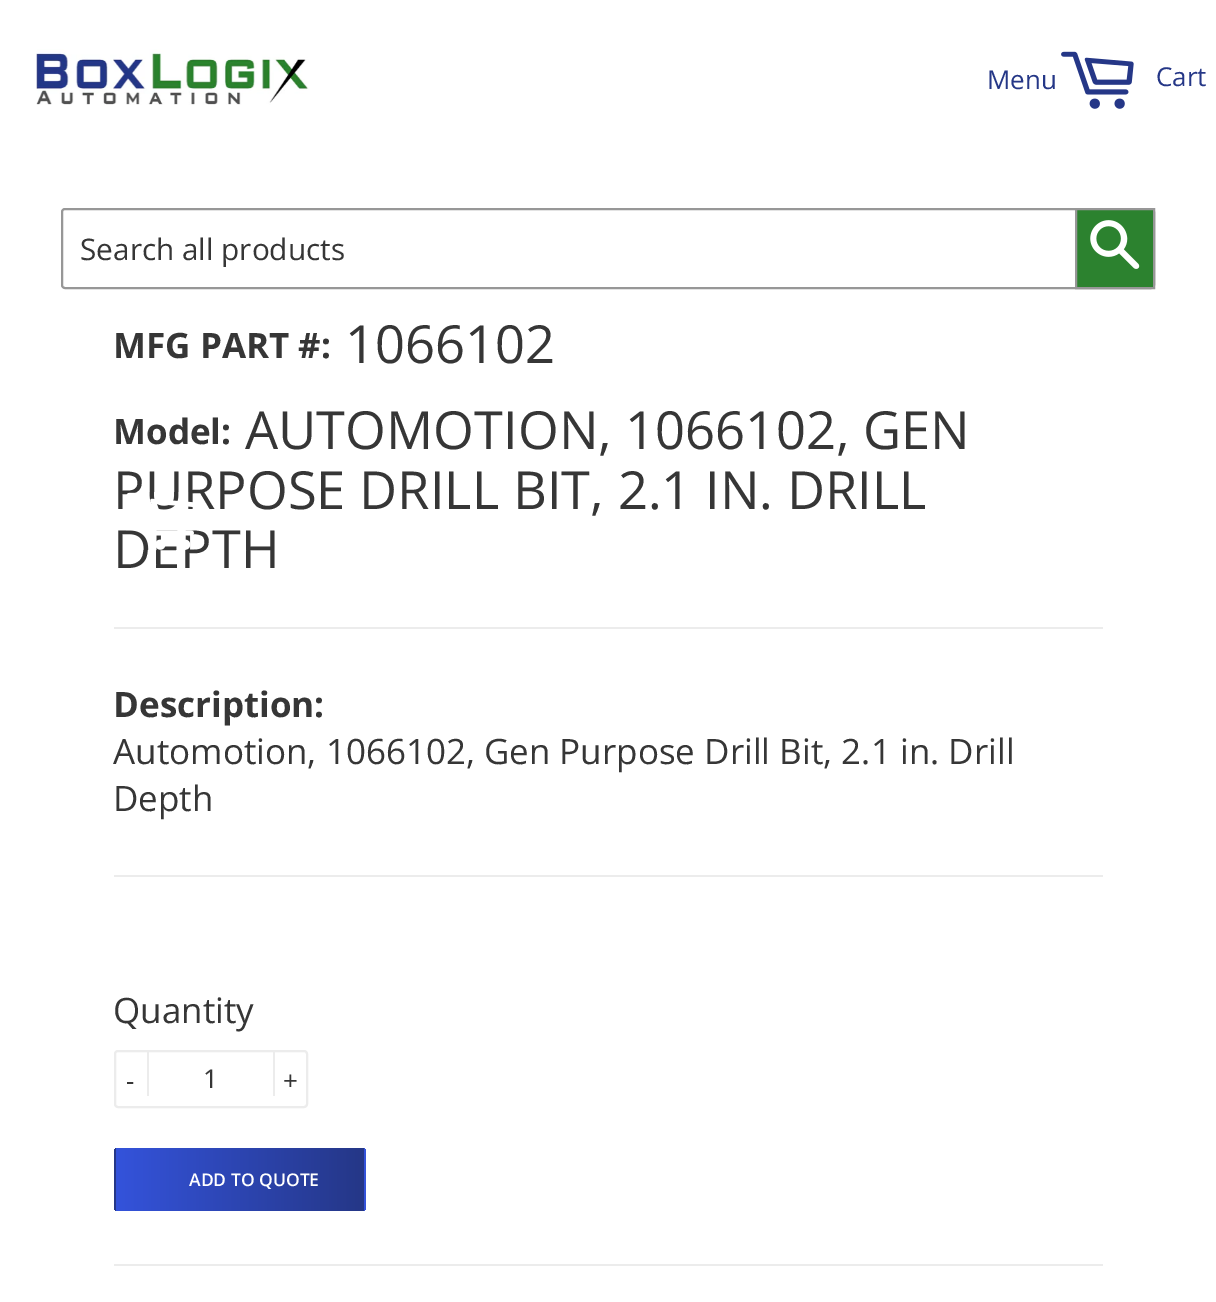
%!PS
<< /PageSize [1216 1302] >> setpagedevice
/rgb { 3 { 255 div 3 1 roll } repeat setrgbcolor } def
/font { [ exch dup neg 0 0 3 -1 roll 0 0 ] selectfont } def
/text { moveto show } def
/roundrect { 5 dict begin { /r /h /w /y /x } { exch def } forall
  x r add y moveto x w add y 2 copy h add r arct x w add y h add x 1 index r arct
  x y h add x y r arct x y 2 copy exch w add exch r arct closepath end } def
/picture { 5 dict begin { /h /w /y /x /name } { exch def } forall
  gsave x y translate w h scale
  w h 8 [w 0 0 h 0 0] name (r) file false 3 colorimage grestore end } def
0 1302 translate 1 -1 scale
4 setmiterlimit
255 255 255 rgb
0 0 1216 1302 rectfill
(img_01.rgb) 1061 51 73 58 picture
(img_02.rgb) 36 49 273 56 picture
151 151 151 rgb
2 setlinewidth
62 209 1092 79 3 roundrect stroke
44 130 47 rgb
1076 209 moveto 78 0 rlineto 0 79 rlineto -78 0 rlineto closepath gsave fill grestore
151 151 151 rgb
stroke
(img_03.rgb) 1090 220 50 49 picture
236 236 236 rgb
114 627 989 2 rectfill
114 875 989 2 rectfill
115 1051 192 56 3 roundrect stroke
147 1050 2 46 rectfill
273 1050 2 46 rectfill
gsave
114 1148 252 63 4 roundrect clip newpath
gsave 114 1148 moveto 2 0 rlineto 0 63 rlineto -2 0 rlineto closepath clip newpath
<< /ShadingType 2 /ColorSpace /DeviceRGB /Coords [-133 1180 116 1180] /Extend [true true] /Function << /FunctionType 2 /Domain [0 1] /C0 [0.204 0.325 0.859] /C1 [0.145 0.216 0.529] /N 1 >> >> shfill grestore
gsave 116 1148 moveto 248 0 rlineto 0 63 rlineto -248 0 rlineto closepath clip newpath
<< /ShadingType 2 /ColorSpace /DeviceRGB /Coords [116 1180 364 1180] /Extend [true true] /Function << /FunctionType 2 /Domain [0 1] /C0 [0.204 0.325 0.859] /C1 [0.145 0.216 0.529] /N 1 >> >> shfill grestore
gsave 364 1148 moveto 2 0 rlineto 0 63 rlineto -2 0 rlineto closepath clip newpath
<< /ShadingType 2 /ColorSpace /DeviceRGB /Coords [364 1180 613 1180] /Extend [true true] /Function << /FunctionType 2 /Domain [0 1] /C0 [0.204 0.325 0.859] /C1 [0.145 0.216 0.529] /N 1 >> >> shfill grestore
grestore
114 1264 989 2 rectfill
/OpenSans-Regular 26 font
37 55 135 rgb
(Menu) 987 89 text
(Cart) 1156 86 text
/OpenSans-Regular 29.75 font
54 54 54 rgb
(Search all products) 80 260 text
/OpenSans-Bold 35 font
(MFG PART #:) 113 358 text
/OpenSans-Regular 52.5 font
(1066102) 345 363 text
/OpenSans-Bold 35 font
(Model:) 113 444 text
/OpenSans-Regular 52.5 font
(AUTOMOTION, 1066102, GEN) 245 449 text
(PURPOSE DRILL BIT, 2.1 IN. DRILL) 113 509 text
(DEPTH) 113 568 text
/OpenSans-Bold 35 font
(Description:) 113 717 text
/OpenSans-Regular 35 font
(Automotion, 1066102, Gen Purpose Drill Bit, 2.1 in. Drill) 113 764 text
(Depth) 113 811 text
(Quantity) 113 1023 text
/OpenSans-Regular 26 font
(-) 126 1090 text
(1) 203 1088 text
(+) 283 1090 text
(img_04.rgb) 126 492 68 58 picture
/OpenSans-SemiBold 17.5 font
255 255 255 rgb
(ADD TO QUOTE) 189 1186 text
showpage
